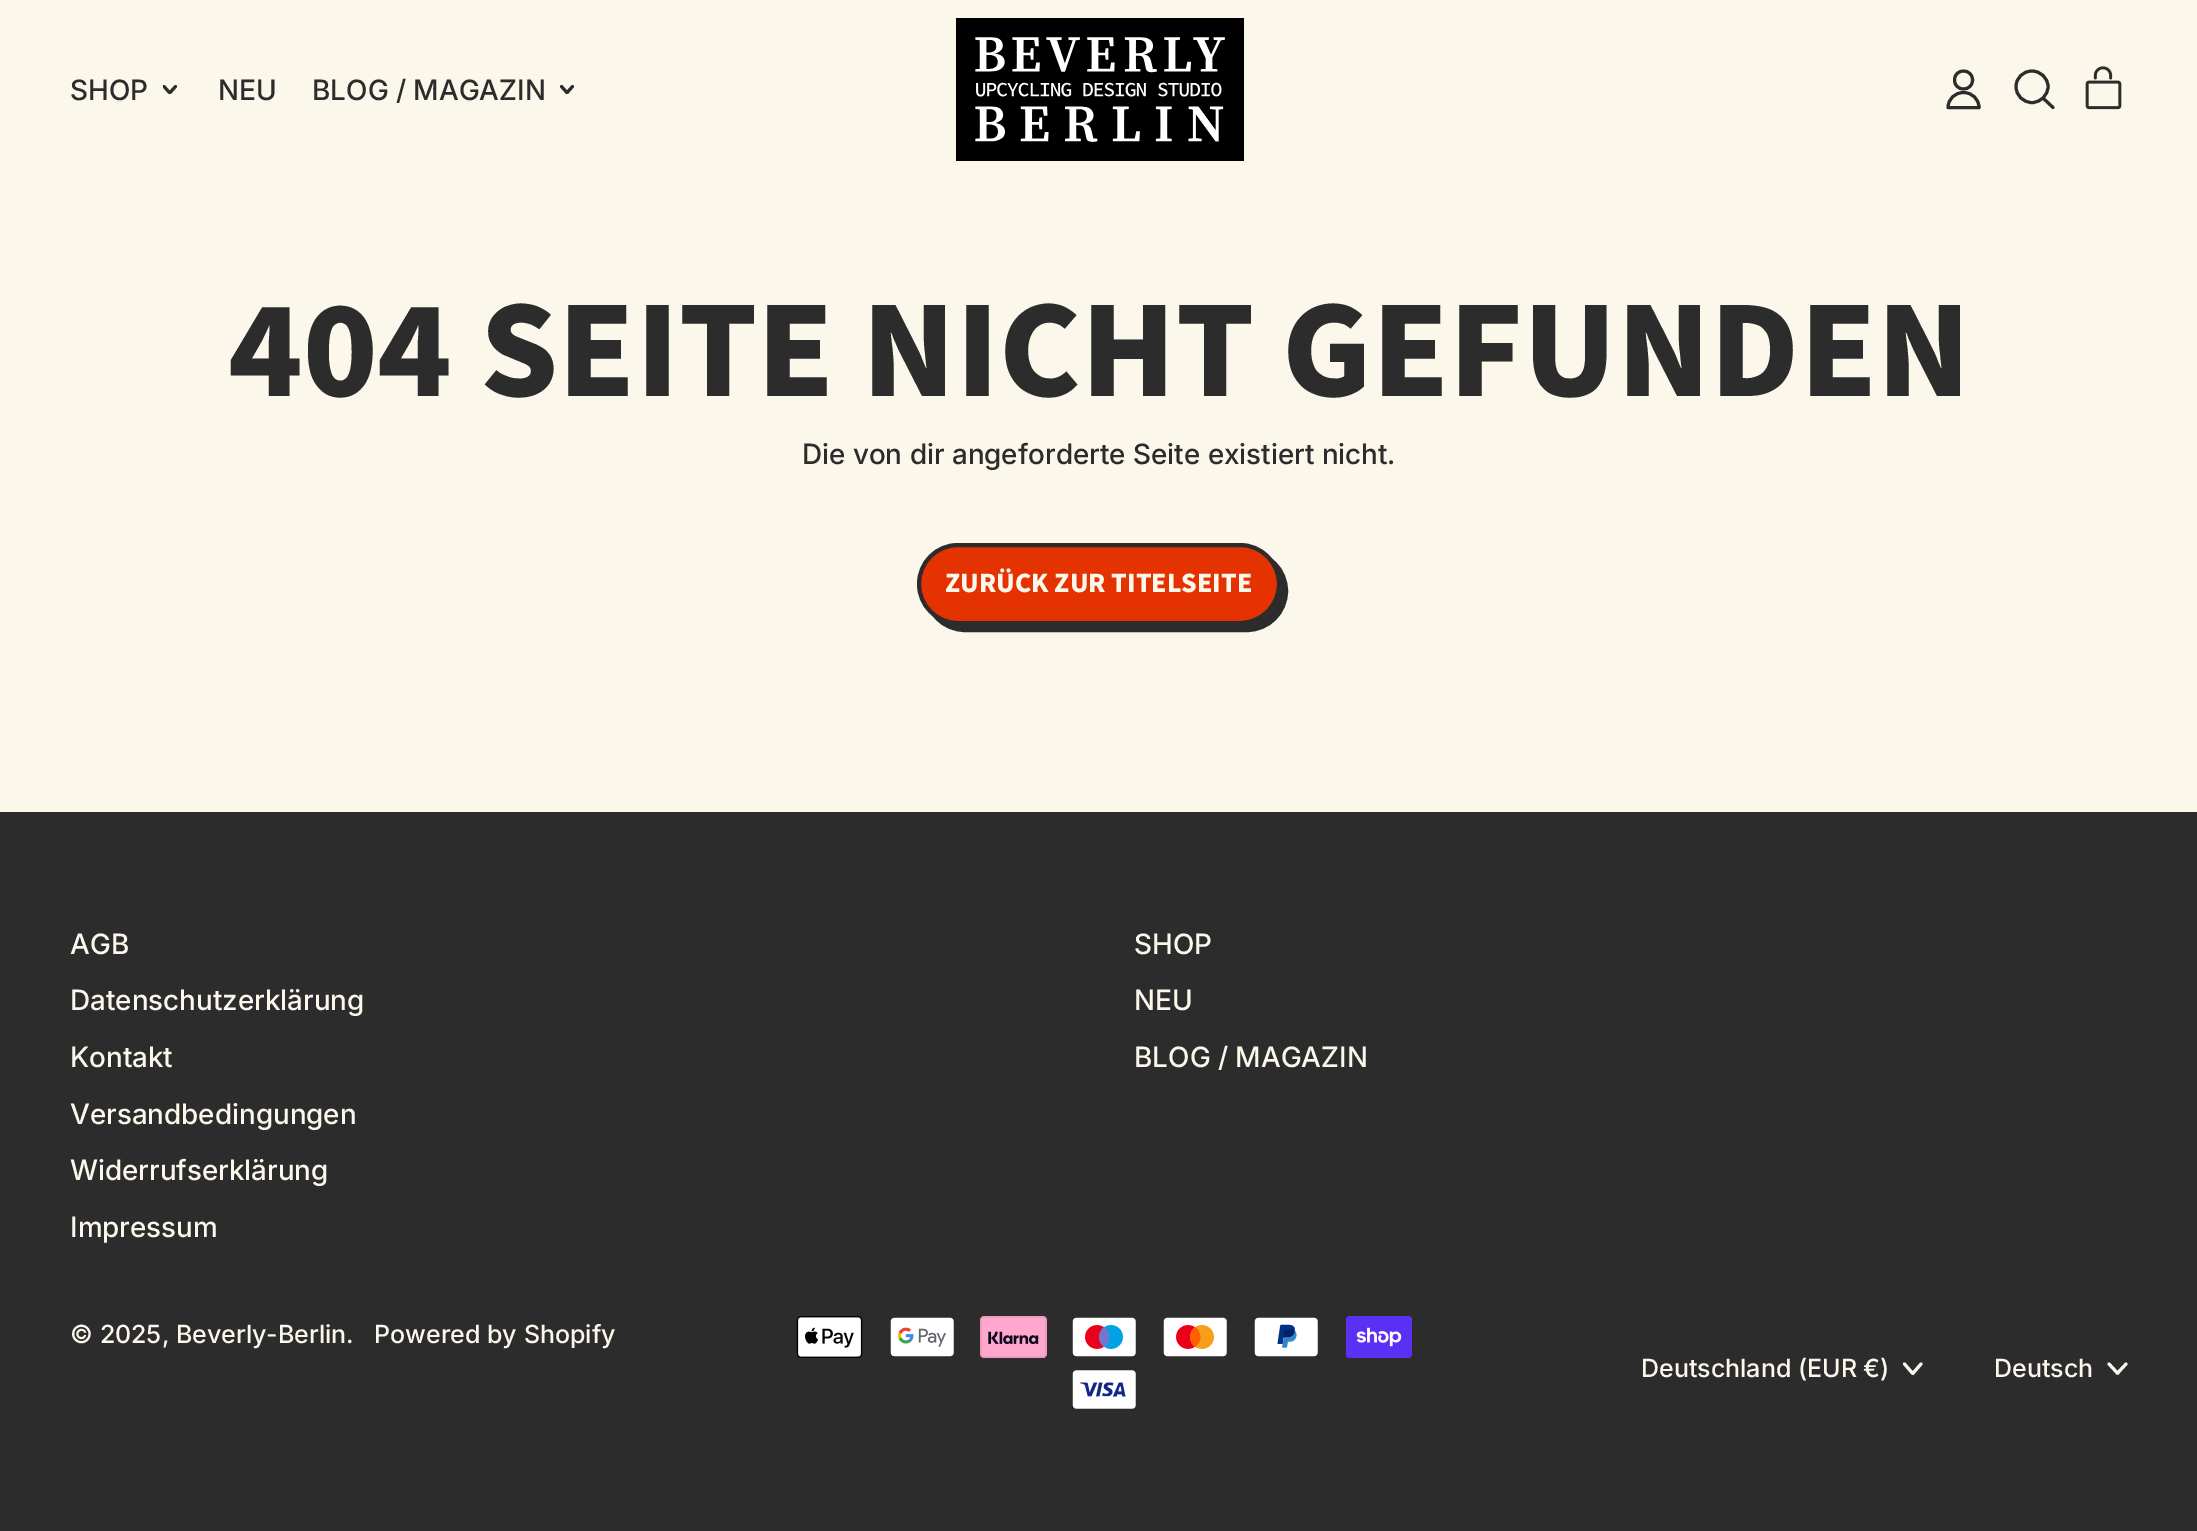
%!PS
<< /PageSize [2197 1531] >> setpagedevice
/rgb { 3 { 255 div 3 1 roll } repeat setrgbcolor } def
/font { [ exch dup neg 0 0 3 -1 roll 0 0 ] selectfont } def
/text { moveto show } def
/roundrect { 5 dict begin { /r /h /w /y /x } { exch def } forall
  x r add y moveto x w add y 2 copy h add r arct x w add y h add x 1 index r arct
  x y h add x y r arct x y 2 copy exch w add exch r arct closepath end } def
/picture { 5 dict begin { /h /w /y /x /name } { exch def } forall
  gsave x y translate w h scale
  w h 8 [w 0 0 h 0 0] name (r) file false 3 colorimage grestore end } def
0 1531 translate 1 -1 scale
4 setmiterlimit
251 247 235 rgb
0 0 2197 1531 rectfill
gsave
163 82 14 14 rectclip
44 44 44 rgb
3 setlinewidth
1 setlinecap
1 setlinejoin
164 86.5 moveto 4.5 5 rlineto 1.5 1.5 1 1.5 2.5 0 rcurveto 4.5 -5 rlineto stroke
grestore
44 44 44 rgb
3 setlinewidth
1 setlinecap
1 setlinejoin
561.5 86.5 moveto 4.5 5 rlineto 1 1.5 1 1.5 2 0 rcurveto 4.5 -5 rlineto stroke
(img_01.rgb) 956 18 288 143 picture
1954.5 80 moveto 0 12 18 12 18 0 rcurveto 0 -12 -18 -12 -18 0 rcurveto closepath 1948 107.5 moveto 0 -8.5 7 -15 15.5 -15 rcurveto 8.5 0 15.5 6.5 15.5 15 rcurveto closepath stroke
2016 86.5 moveto 0 9 7 16 16 16 rcurveto 8.5 0 16 -7 16 -16 rcurveto 0 -8.5 -7.5 -15.5 -16 -15.5 rcurveto -9 0 -16 7 -16 15.5 rcurveto closepath 2053 107.5 moveto -9.5 -9 rlineto stroke
(img_02.rgb) 2085 66 37 44 picture
926 552 360 78 39 roundrect gsave fill grestore
4 setlinewidth
0 setlinecap
0 setlinejoin
stroke
228 50 0 rgb
919 545 360 78 39 roundrect gsave fill grestore
44 44 44 rgb
stroke
0 812 2197 719 rectfill
(img_03.rgb) 796 1316 67 42 picture
(img_04.rgb) 890 1317 64 40 picture
(img_05.rgb) 980 1316 67 42 picture
(img_06.rgb) 1072 1317 64 40 picture
(img_07.rgb) 1163 1317 64 40 picture
(img_08.rgb) 1254 1317 64 40 picture
(img_09.rgb) 1346 1316 66 42 picture
(img_10.rgb) 1072 1370 64 39 picture
251 247 235 rgb
3 setlinewidth
1 setlinecap
1 setlinejoin
1904.5 1364 moveto 6.5 7.5 rlineto 2 2.5 1.5 2.5 3.5 0 rcurveto 6.5 -7.5 rlineto stroke
2109 1364 moveto 7 7.5 rlineto 2 2.5 1 2.5 3 0 rcurveto 7 -7.5 rlineto stroke
/Inter-Medium 28 font
44 44 44 rgb
(SHOP) 70 100 text
(NEU) 218 100 text
(BLOG / MAGAZIN) 312 100 text
/SourceSansPro-ExtraBold 139.9 font
(404 SEITE NICHT GEFUNDEN) 228 396 text
/Inter-Medium 28 font
(Die von dir angeforderte Seite existiert nicht.) 802 464 text
/SourceSansPro-ExtraBold 28 font
251 247 235 rgb
(ZURÜCK ZUR TITELSEITE) 945 592 text
/Inter-Medium 28 font
(AGB) 70 954 text
(Datenschutzerklärung) 70 1010 text
(Kontakt) 70 1067 text
(Versandbedingungen) 70 1124 text
(Widerrufserklärung) 70 1180 text
(Impressum) 70 1237 text
(SHOP) 1134 954 text
(NEU) 1134 1010 text
(BLOG / MAGAZIN) 1134 1067 text
/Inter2-Medium 25 font
(© 2025, Beverly-Berlin.) 70 1343 text
(Powered by Shopify) 374 1343 text
(Deutschland \(EUR €\)) 1641 1377 text
(Deutsch) 1994 1377 text
showpage
